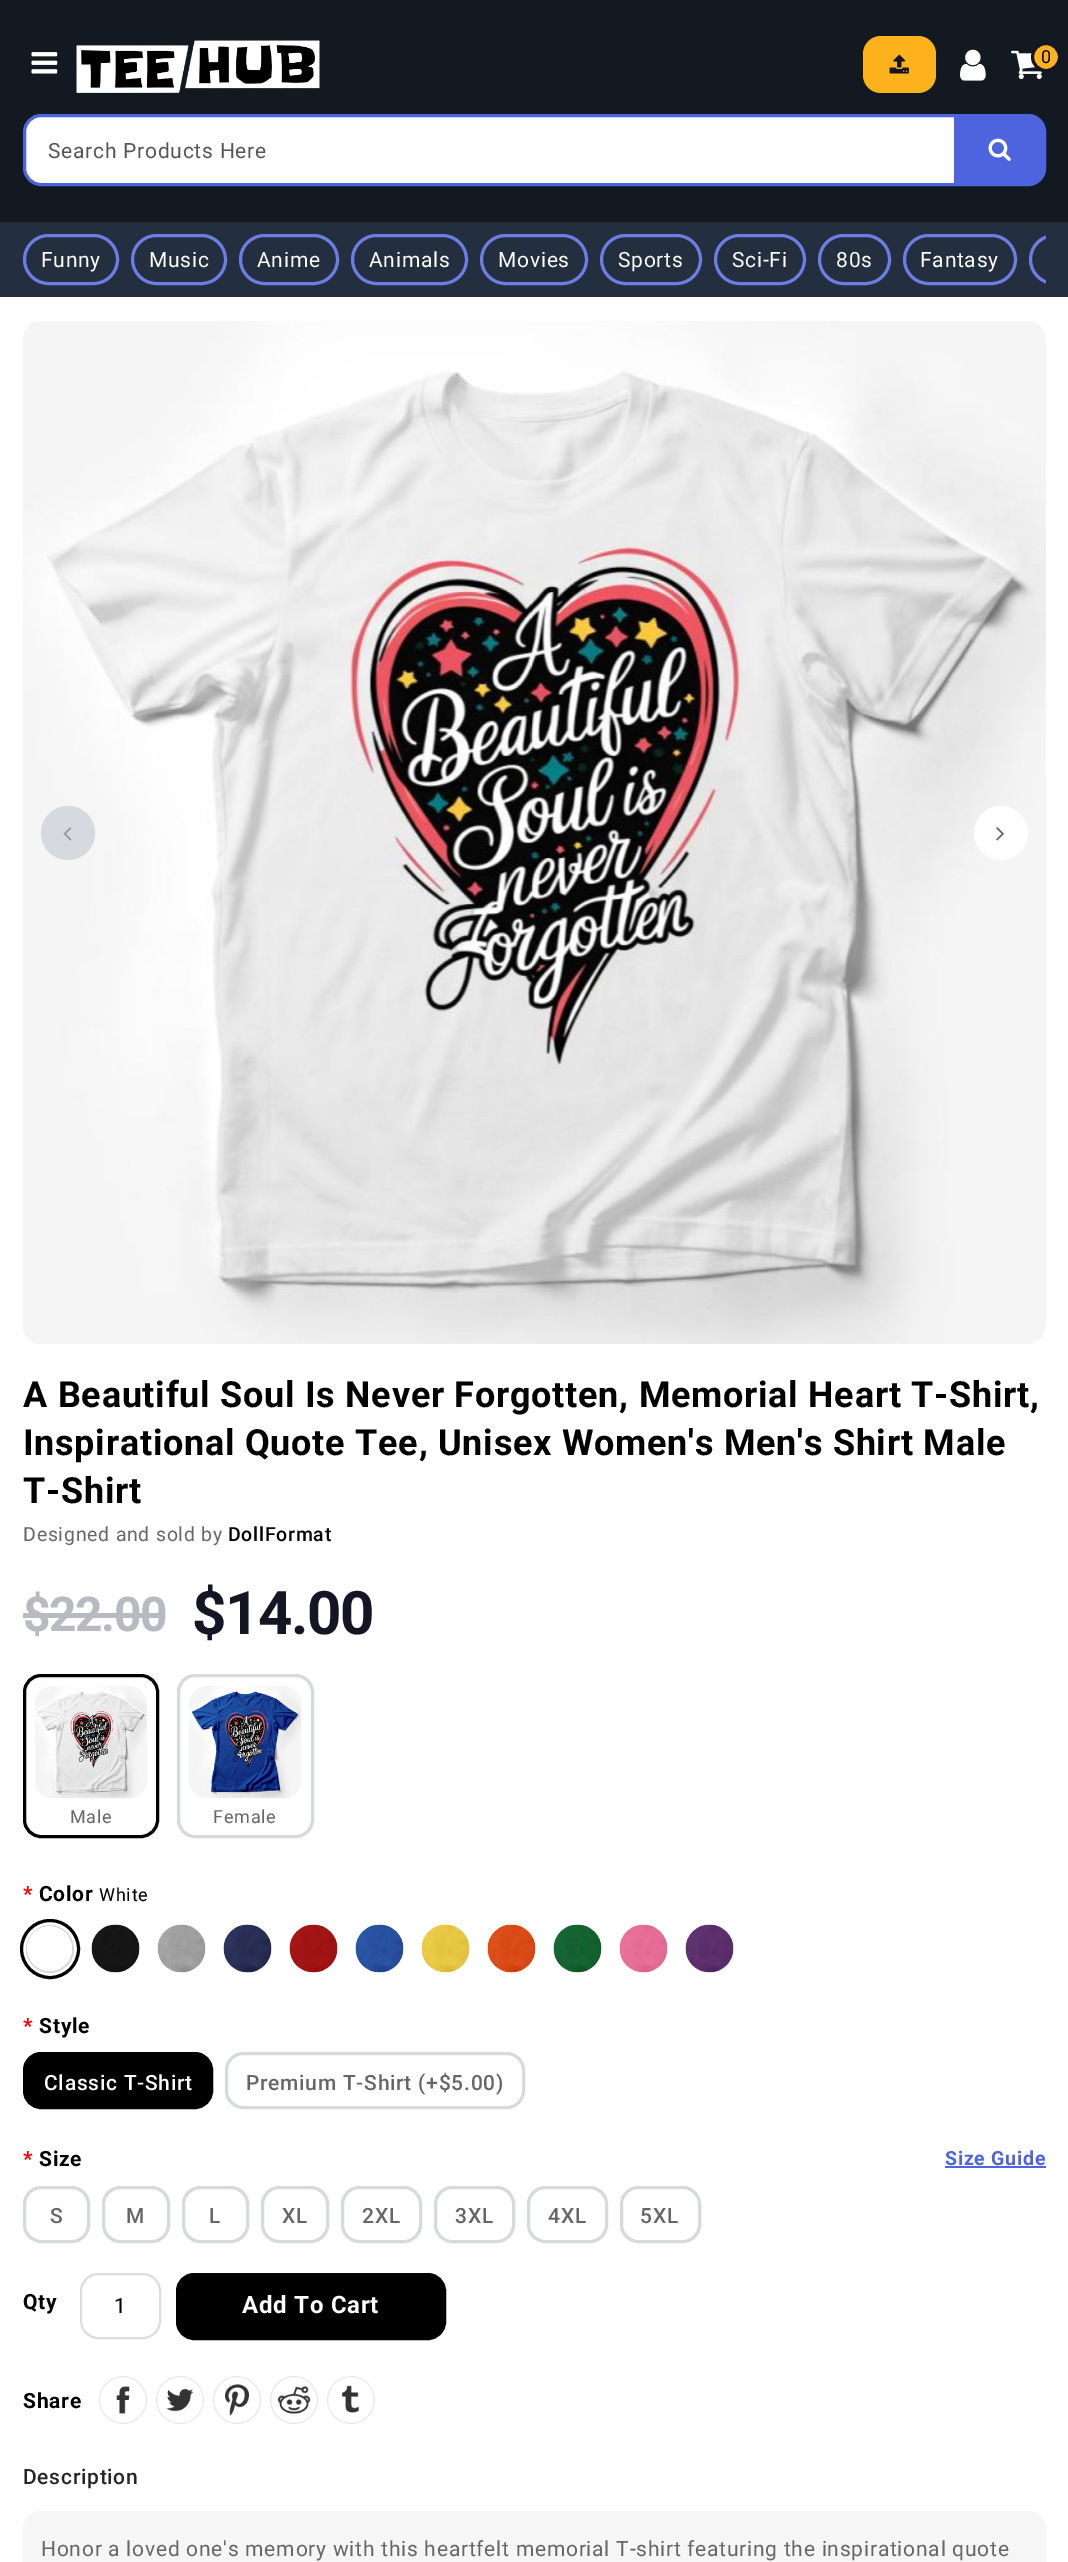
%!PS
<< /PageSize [1068 2562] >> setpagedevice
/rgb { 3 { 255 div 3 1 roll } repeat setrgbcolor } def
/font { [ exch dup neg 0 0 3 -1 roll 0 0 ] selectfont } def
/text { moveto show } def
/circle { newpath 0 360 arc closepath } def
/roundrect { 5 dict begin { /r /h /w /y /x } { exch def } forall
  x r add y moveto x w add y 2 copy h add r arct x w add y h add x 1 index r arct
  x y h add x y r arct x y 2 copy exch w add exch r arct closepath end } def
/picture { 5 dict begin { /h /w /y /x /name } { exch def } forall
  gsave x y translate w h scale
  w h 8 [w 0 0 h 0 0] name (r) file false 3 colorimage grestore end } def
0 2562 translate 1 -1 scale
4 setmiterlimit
255 255 255 rgb
0 0 1068 2562 rectfill
19 25 33 rgb
0 0 1068 222 rectfill
(img_01.rgb) 31 52 27 22 picture
(img_02.rgb) 76 40 244 53 picture
254 178 27 rgb
863 36 73 57 18 roundrect fill
(img_03.rgb) 889 54 20 20 picture
(img_04.rgb) 960 49 26 32 picture
(img_05.rgb) 1011 50 31 30 picture
1046 57 13.5 circle gsave fill grestore
21 21 35 rgb
3 setlinewidth
stroke
255 255 255 rgb
24.5 115.5 1020 69 16.5 roundrect gsave fill grestore
78 100 223 rgb
stroke
954 114 moveto 74 0 rlineto 10 0 18 8 18 18 rcurveto 0 36 rlineto 0 10 -8 18 -18 18 rcurveto -74 0 rlineto closepath fill
(img_06.rgb) 988 138 23 23 picture
35 47 62 rgb
0 222 1068 75 rectfill
108 126 228 rgb
24.5 235.5 93 48 24 roundrect stroke
132.5 235.5 93 48 24 roundrect stroke
240.5 235.5 97 48 24 roundrect stroke
352.5 235.5 114 48 24 roundrect stroke
481.5 235.5 105 48 24 roundrect stroke
601.5 235.5 99 48 24 roundrect stroke
715.5 235.5 89 48 24 roundrect stroke
819.5 235.5 70 48 24 roundrect stroke
904.5 235.5 111 48 24 roundrect stroke
gsave
23 234 1023 51 rectclip
1030.5 235.5 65 48 24 roundrect stroke
grestore
(img_07.rgb) 23 321 1023 1023 picture
214 218 223 rgb
68 833 27 circle fill
(img_08.rgb) 63 827 9 14 picture
255 255 255 rgb
1001 833 27 circle fill
(img_09.rgb) 996 827 8 14 picture
185 185 193 rgb
23 1613 142 5 rectfill
0 0 0 rgb
24.5 1675.5 133 161 16.5 roundrect stroke
(img_10.rgb) 35 1686 112 113 picture
214 218 223 rgb
178.5 1675.5 134 161 16.5 roundrect stroke
(img_11.rgb) 189 1686 113 113 picture
215 215 219 rgb
2 setlinewidth
50 1949 23 circle stroke
(img_12.rgb) 27 1926 45 45 picture
0 0 0 rgb
3 setlinewidth
50 1949 28.5 circle stroke
(img_13.rgb) 91 1924 49 49 picture
(img_14.rgb) 157 1924 49 49 picture
(img_15.rgb) 223 1924 49 49 picture
(img_16.rgb) 289 1924 49 49 picture
(img_17.rgb) 355 1924 49 49 picture
(img_18.rgb) 421 1924 49 49 picture
(img_19.rgb) 487 1924 49 49 picture
(img_20.rgb) 553 1924 49 49 picture
(img_21.rgb) 619 1924 49 49 picture
(img_22.rgb) 685 1924 49 49 picture
24.5 2053.5 187 54 16.5 roundrect gsave fill grestore
stroke
214 218 223 rgb
226.5 2053.5 297 54 16.5 roundrect stroke
24.5 2187.5 64 54 16.5 roundrect stroke
103.5 2187.5 65 54 16.5 roundrect stroke
183.5 2187.5 64 54 16.5 roundrect stroke
262.5 2187.5 65 54 16.5 roundrect stroke
342.5 2187.5 78 54 16.5 roundrect stroke
435.5 2187.5 78 54 16.5 roundrect stroke
528.5 2187.5 78 54 16.5 roundrect stroke
621.5 2187.5 78 54 16.5 roundrect stroke
78 100 223 rgb
945 2166 101 2 rectfill
221 221 221 rgb
2 setlinewidth
81 2274 79 64 17 roundrect stroke
0 0 0 rgb
177 2274 268 65 17 roundrect gsave fill grestore
stroke
(img_23.rgb) 99 2376 48 48 picture
(img_24.rgb) 156 2376 48 48 picture
(img_25.rgb) 213 2376 48 48 picture
(img_26.rgb) 270 2376 48 48 picture
(img_27.rgb) 327 2376 48 48 picture
246 246 246 rgb
23 2511 1023 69 18 roundrect fill
/Roboto-Regular 18 font
0 0 0 rgb
1041 63 moveto 1 0 (0) ashow
/Roboto-Regular 21 font
85 85 85 rgb
48 158 moveto 0.75 0 (Search Products Here) ashow
255 255 255 rgb
41 267 moveto 0.75 0 (Funny) ashow
149 267 moveto 0.75 0 (Music) ashow
257 267 moveto 0.75 0 (Anime) ashow
369 267 moveto 0.75 0 (Animals) ashow
498 267 moveto 0.75 0 (Movies) ashow
618 267 moveto 0.75 0 (Sports) ashow
732 267 moveto 0.75 0 (Sci-Fi) ashow
836 267 moveto 0.75 0 (80s) ashow
920 267 moveto 0.75 0 (Fantasy) ashow
/Roboto-Bold 36 font
0 0 0 rgb
23 1407 moveto 0.75 0 (A Beautiful Soul Is Never Forgotten, Memorial Heart T-Shirt,) ashow
23 1455 moveto 0.75 0 (Inspirational Quote Tee, Unisex Women's Men's Shirt Male) ashow
23 1503 moveto 0.75 0 (T-Shirt) ashow
/Roboto-Regular 19.5 font
102 102 102 rgb
23 1541 moveto 0.75 0 (Designed and sold by) ashow
/Roboto-Medium 19.5 font
0 0 0 rgb
228 1541 moveto 0.75 0 (DollFormat) ashow
/Roboto-Bold 48 font
185 185 193 rgb
23 1631 moveto -1.5 0 ($22.00) ashow
/Roboto-Bold 60 font
21 21 35 rgb
192 1634 moveto -1.5 0 ($14.00) ashow
/Roboto-Regular 18 font
102 102 102 rgb
70 1823 moveto 0.75 0 (Male) ashow
213 1823 moveto 0.75 0 (Female) ashow
/Roboto-Bold 21 font
255 0 0 rgb
23 1901 moveto 0.75 0 (*) ashow
0 0 0 rgb
39 1901 moveto 0.75 0 (Color) ashow
/Roboto-Regular 18 font
99 1901 moveto 0.75 0 (White) ashow
/Roboto-Bold 21 font
255 0 0 rgb
23 2033 moveto 0.75 0 (*) ashow
0 0 0 rgb
39 2033 moveto 0.75 0 (Style) ashow
/Roboto-Medium 21 font
255 255 255 rgb
44 2090 moveto 0.75 0 (Classic T-Shirt) ashow
102 102 102 rgb
246 2090 moveto 0.75 0 (Premium T-Shirt \(+$5.00\)) ashow
/Roboto-Bold 21 font
255 0 0 rgb
23 2166 moveto 0.75 0 (*) ashow
0 0 0 rgb
39 2166 moveto 0.75 0 (Size) ashow
/Roboto-Medium 21 font
102 102 102 rgb
50 2223 moveto 0.75 0 (S) ashow
126 2223 moveto 0.75 0 (M) ashow
209 2223 moveto 0.75 0 (L) ashow
282 2223 moveto 0.75 0 (XL) ashow
362 2223 moveto 0.75 0 (2XL) ashow
455 2223 moveto 0.75 0 (3XL) ashow
548 2223 moveto 0.75 0 (4XL) ashow
640 2223 moveto 0.75 0 (5XL) ashow
/Roboto-Bold 19.5 font
78 100 223 rgb
945 2165 moveto 0.75 0 (Size Guide) ashow
/Roboto-Bold 21 font
0 0 0 rgb
23 2309 moveto 0.75 0 (Qty) ashow
/Roboto-Regular 21 font
(1) 114 2313 text
/Roboto-Bold 24 font
255 255 255 rgb
242 2313 moveto 0.75 0 (Add To Cart) ashow
/Roboto-Bold 21 font
0 0 0 rgb
23 2408 moveto 0.75 0 (Share) ashow
/Roboto-Medium 21 font
38 38 38 rgb
23 2484 moveto 0.75 0 (Description) ashow
/Roboto-Regular 21 font
102 102 102 rgb
41 2556 moveto 0.75 0 (Honor a loved one's memory with this heartfelt memorial T-shirt featuring the inspirational quote) ashow
showpage
